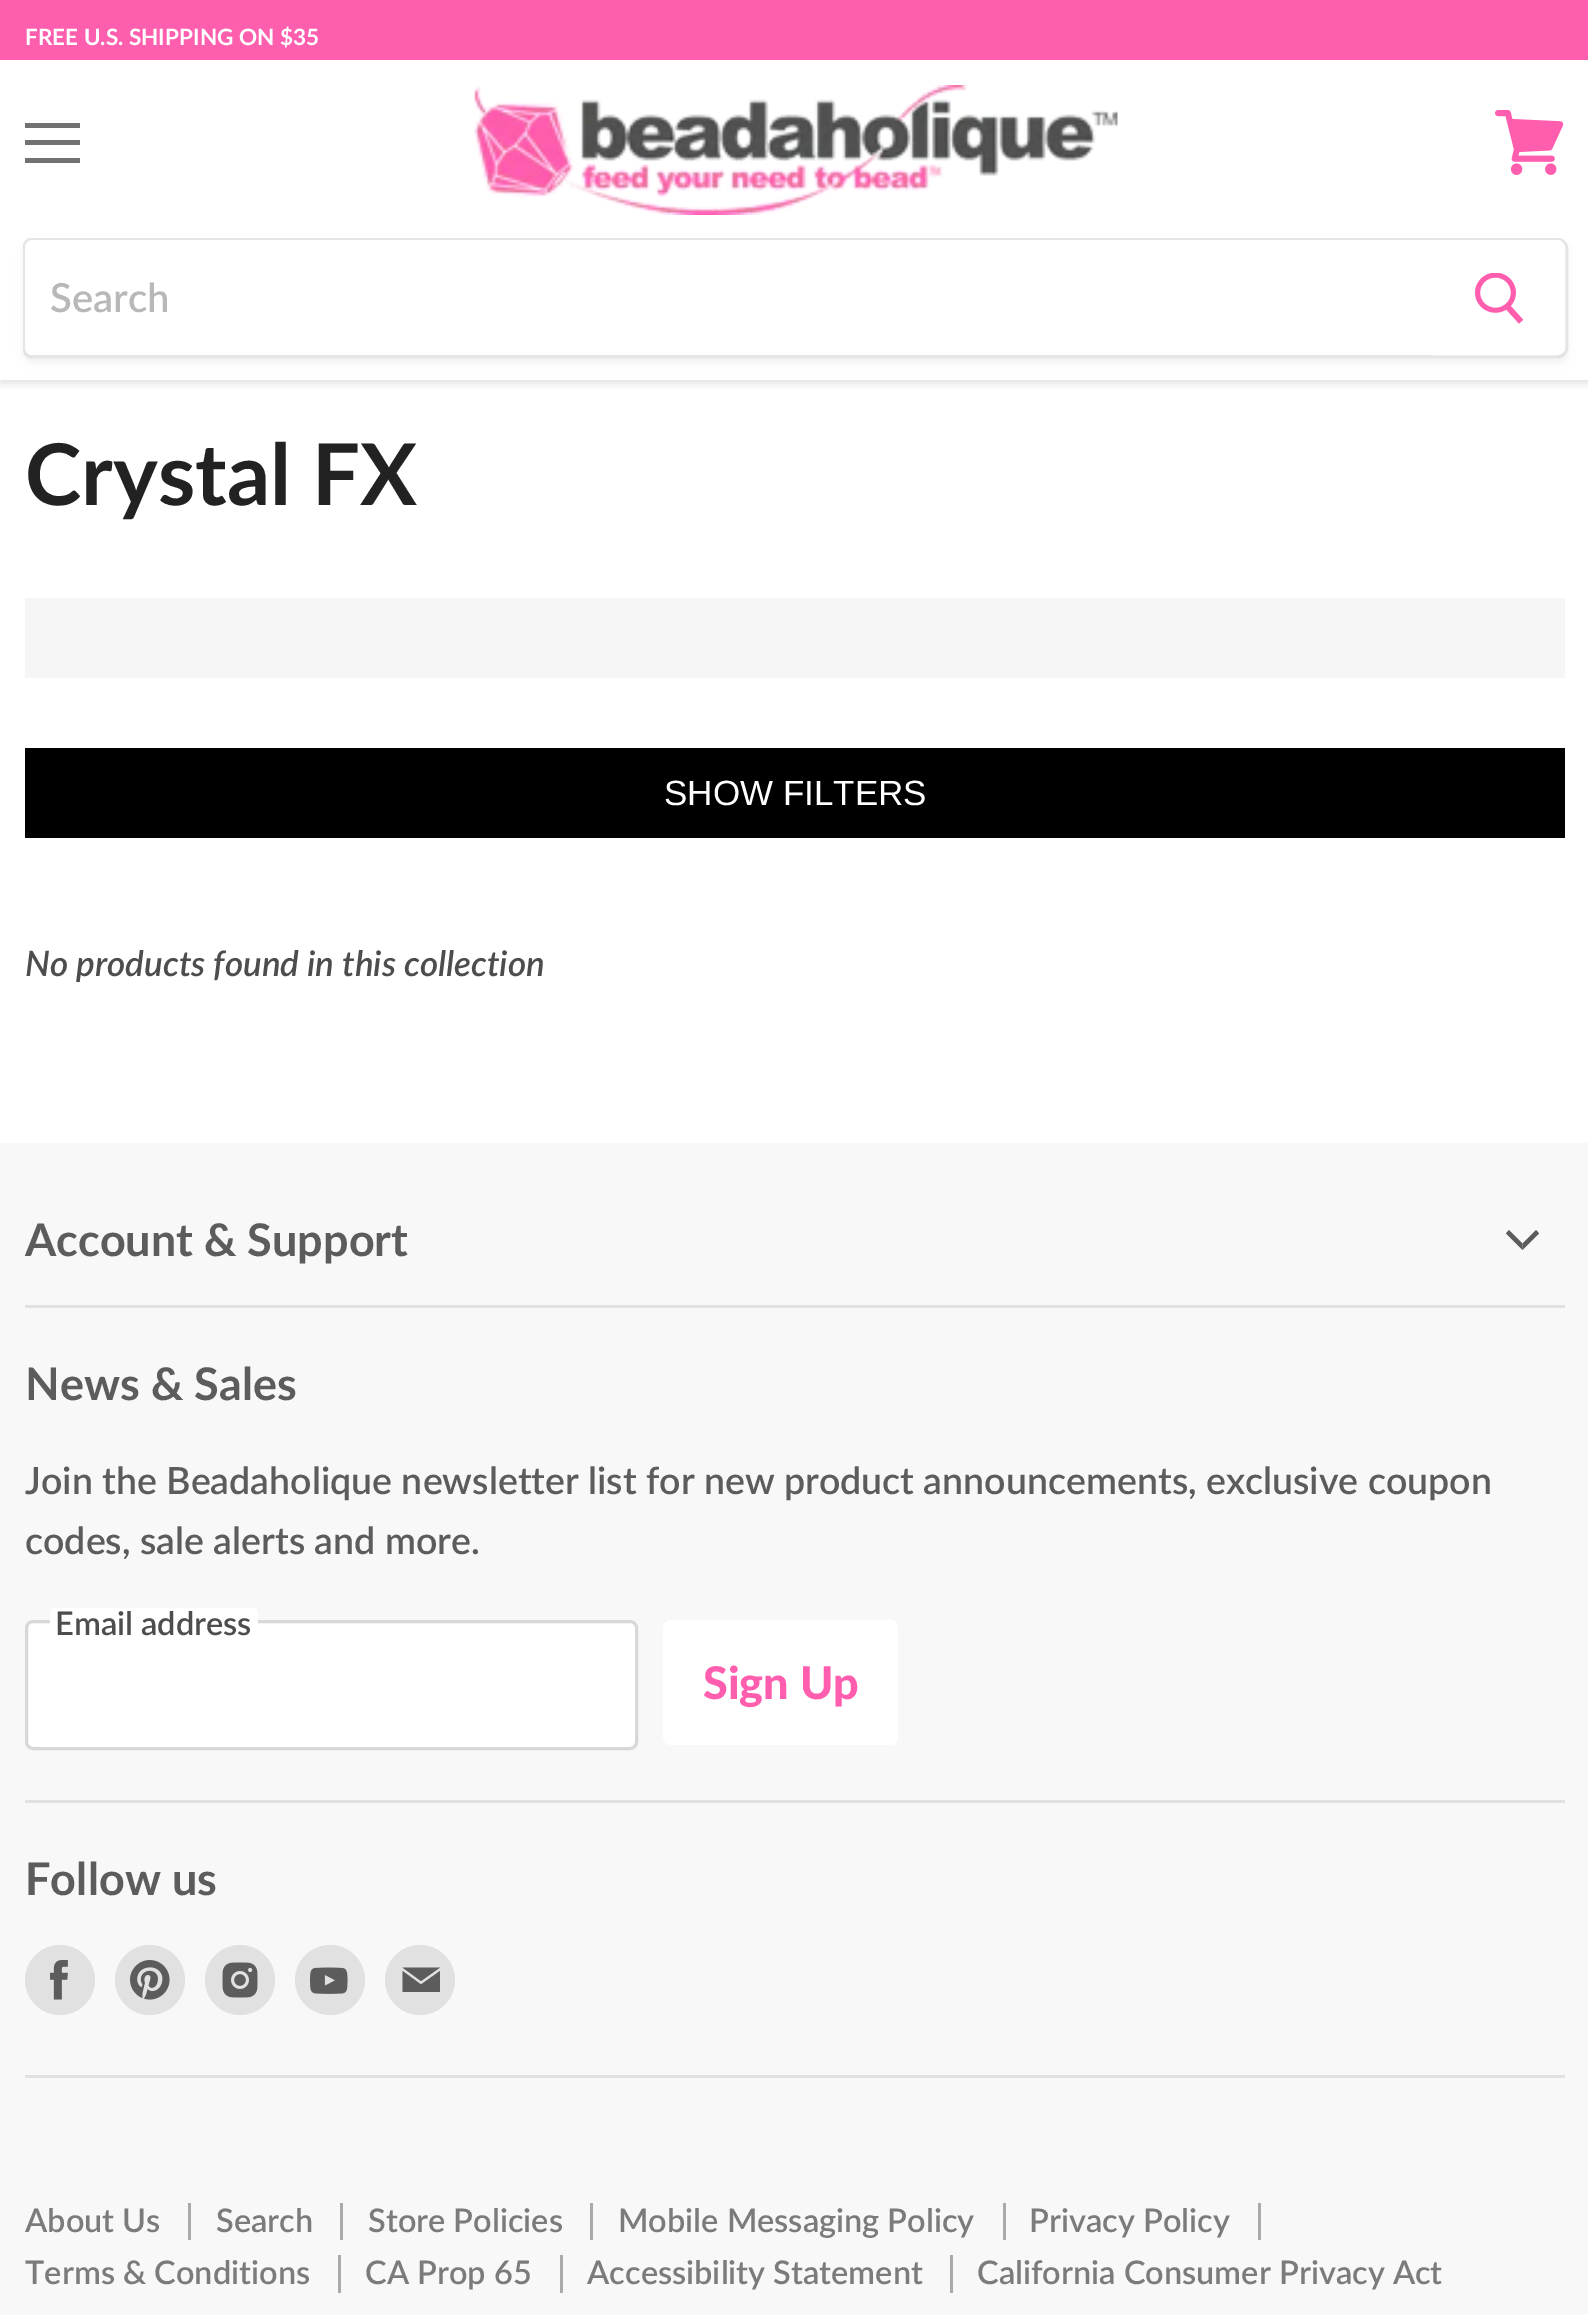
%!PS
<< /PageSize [1588 2315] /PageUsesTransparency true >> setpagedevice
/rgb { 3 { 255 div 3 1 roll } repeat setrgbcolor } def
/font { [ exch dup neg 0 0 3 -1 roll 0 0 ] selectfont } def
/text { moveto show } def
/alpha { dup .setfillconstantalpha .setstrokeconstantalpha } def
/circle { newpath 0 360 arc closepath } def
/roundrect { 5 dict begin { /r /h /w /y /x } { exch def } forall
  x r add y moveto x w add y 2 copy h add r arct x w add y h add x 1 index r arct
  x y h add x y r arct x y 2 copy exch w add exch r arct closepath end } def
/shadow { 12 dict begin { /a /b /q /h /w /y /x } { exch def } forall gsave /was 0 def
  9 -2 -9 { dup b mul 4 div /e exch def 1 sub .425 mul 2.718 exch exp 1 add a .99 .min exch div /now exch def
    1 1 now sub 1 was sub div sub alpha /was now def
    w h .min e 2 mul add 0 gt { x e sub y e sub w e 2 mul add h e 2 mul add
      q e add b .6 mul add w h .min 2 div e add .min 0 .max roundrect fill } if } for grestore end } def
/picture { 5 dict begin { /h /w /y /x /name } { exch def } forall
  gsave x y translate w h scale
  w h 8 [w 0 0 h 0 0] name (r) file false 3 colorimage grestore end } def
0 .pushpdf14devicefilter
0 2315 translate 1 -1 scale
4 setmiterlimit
255 255 255 rgb
0 0 1588 2315 rectfill
gsave
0 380 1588 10 rectclip
127 127 127 rgb
0 3 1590 380 0 5 0.25 shadow
grestore
254 94 174 rgb
0 0 1588 60 rectfill
114 114 114 rgb
25 123 55 5 rectfill
25 140 55 5 rectfill
25 158 55 5 rectfill
(img_01.rgb) 1495 110 69 65 picture
(img_02.rgb) 474 85 644 130 picture
gsave
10 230 moveto 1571 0 rlineto 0 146 rlineto -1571 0 rlineto closepath 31 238 moveto 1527 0 rlineto 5.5 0 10 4.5 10 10 rcurveto 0 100 rlineto 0 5.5 -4.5 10 -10 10 rcurveto -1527 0 rlineto -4.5 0 -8 -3.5 -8 -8 rcurveto 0 -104 rlineto 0 -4.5 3.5 -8 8 -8 rcurveto closepath eoclip newpath
127 127 127 rgb
23 243 1545 120 10 4 0.11 shadow
grestore
0.2 alpha
127 127 127 rgb
3 setlinewidth
31 239.5 moveto 1527 0 rlineto 4.5 0 8.5 4 8.5 8.5 rcurveto 0 100 rlineto 0 4.5 -4 8.5 -8.5 8.5 rcurveto -1527 0 rlineto -3.5 0 -6.5 -3 -6.5 -6.5 rcurveto 0 -104 rlineto 0 -3.5 3 -6.5 6.5 -6.5 rcurveto closepath stroke
1 alpha
255 255 255 rgb
33 240 moveto 1400 0 rlineto 0 115 rlineto -1400 0 rlineto -4.5 0 -8 -3.5 -8 -8 rcurveto 0 -99 rlineto 0 -4.5 3.5 -8 8 -8 rcurveto closepath fill
1434.5 241.5 moveto 122.5 0 rlineto 3.5 0 6.5 3 6.5 6.5 rcurveto 0 99 rlineto 0 3.5 -3 6.5 -6.5 6.5 rcurveto -122.5 0 rlineto closepath gsave fill grestore
stroke
(img_03.rgb) 1475 273 49 51 picture
246 246 246 rgb
25 598 1540 80 rectfill
0 0 0 rgb
25 748 1540 90 rectfill
248 248 248 rgb
0 1143 1588 1172 rectfill
225 225 225 rgb
25 1305 1540 3 rectfill
92 92 92 rgb
1522.5 1250 moveto 16.5 -16.5 rlineto -3 -3.5 rlineto -13.5 13.5 rlineto closepath eofill
1522.5 1243.5 moveto -13.5 -13.5 rlineto -3 3.5 rlineto 16.5 16.5 rlineto closepath eofill
225 225 225 rgb
25 1800 1540 3 rectfill
255 255 255 rgb
25 1620 613 130 8 roundrect fill
0.3 alpha
127 127 127 rgb
26.5 1621.5 610 127 6.5 roundrect stroke
1 alpha
255 255 255 rgb
50 1608 208 32 5 roundrect fill
663 1620 235 125 8 roundrect fill
225 225 225 rgb
25 2075 1540 3 rectfill
60 1980 35 circle fill
(img_04.rgb) 50 1960 18 40 picture
150 1980 35 circle fill
(img_05.rgb) 130 1960 40 40 picture
240 1980 35 circle fill
(img_06.rgb) 222 1962 36 36 picture
330 1980 35 circle fill
(img_07.rgb) 310 1967 38 27 picture
420 1980 35 circle fill
92 92 92 rgb
440 1967.5 moveto -37.5 0 rlineto 18.5 13.5 rlineto closepath 421 1984.5 moveto -18.5 -13.5 rlineto 0 21 rlineto 37.5 0 rlineto 0 -21 rlineto closepath eofill
170 170 170 rgb
188 2203 3 37 rectfill
340 2203 3 37 rectfill
590 2203 3 37 rectfill
1003 2203 3 37 rectfill
1258 2203 3 37 rectfill
338 2255 3 38 rectfill
560 2255 3 38 rectfill
950 2255 3 38 rectfill
/Lato-Bold 22.5 font
255 255 255 rgb
(FREE U.S. SHIPPING ON $35) 25 45 text
/Lato-SemiBold 40 font
184 184 184 rgb
(Search) 50 312 text
/Lato-Bold 85 font
34 34 34 rgb
(Crystal FX) 25 505 text
/LiberationSans-Regular 35 font
255 255 255 rgb
(SHOW FILTERS) 664 805 text
/Lato-SemiBoldItalic 35 font
77 77 77 rgb
(No products found in this collection) 25 976 text
/Lato-Bold 45 font
92 92 92 rgb
(Account & Support) 25 1256 text
(News & Sales) 25 1400 text
/Lato-SemiBold 37.5 font
(Join the Beadaholique newsletter list for new product announcements, exclusive coupon) 25 1494 text
(codes, sale alerts and more.) 25 1554 text
/Lato-SemiBold 32.5 font
77 77 77 rgb
(Email address) 55 1635 text
/Lato-Black 45 font
255 93 174 rgb
(Sign Up) 703 1699 text
/Lato-Bold 45 font
92 92 92 rgb
(Follow us) 25 1895 text
/Lato-SemiBold 32.5 font
123 123 123 rgb
(About Us) 25 2232 text
(Search) 216 2232 text
(Store Policies) 368 2232 text
(Mobile Messaging Policy) 618 2232 text
(Privacy Policy) 1029 2232 text
(Terms & Conditions) 25 2284 text
(CA Prop 65) 365 2284 text
(Accessibility Statement) 587 2284 text
(California Consumer Privacy Act) 977 2284 text
.poppdf14devicefilter showpage
